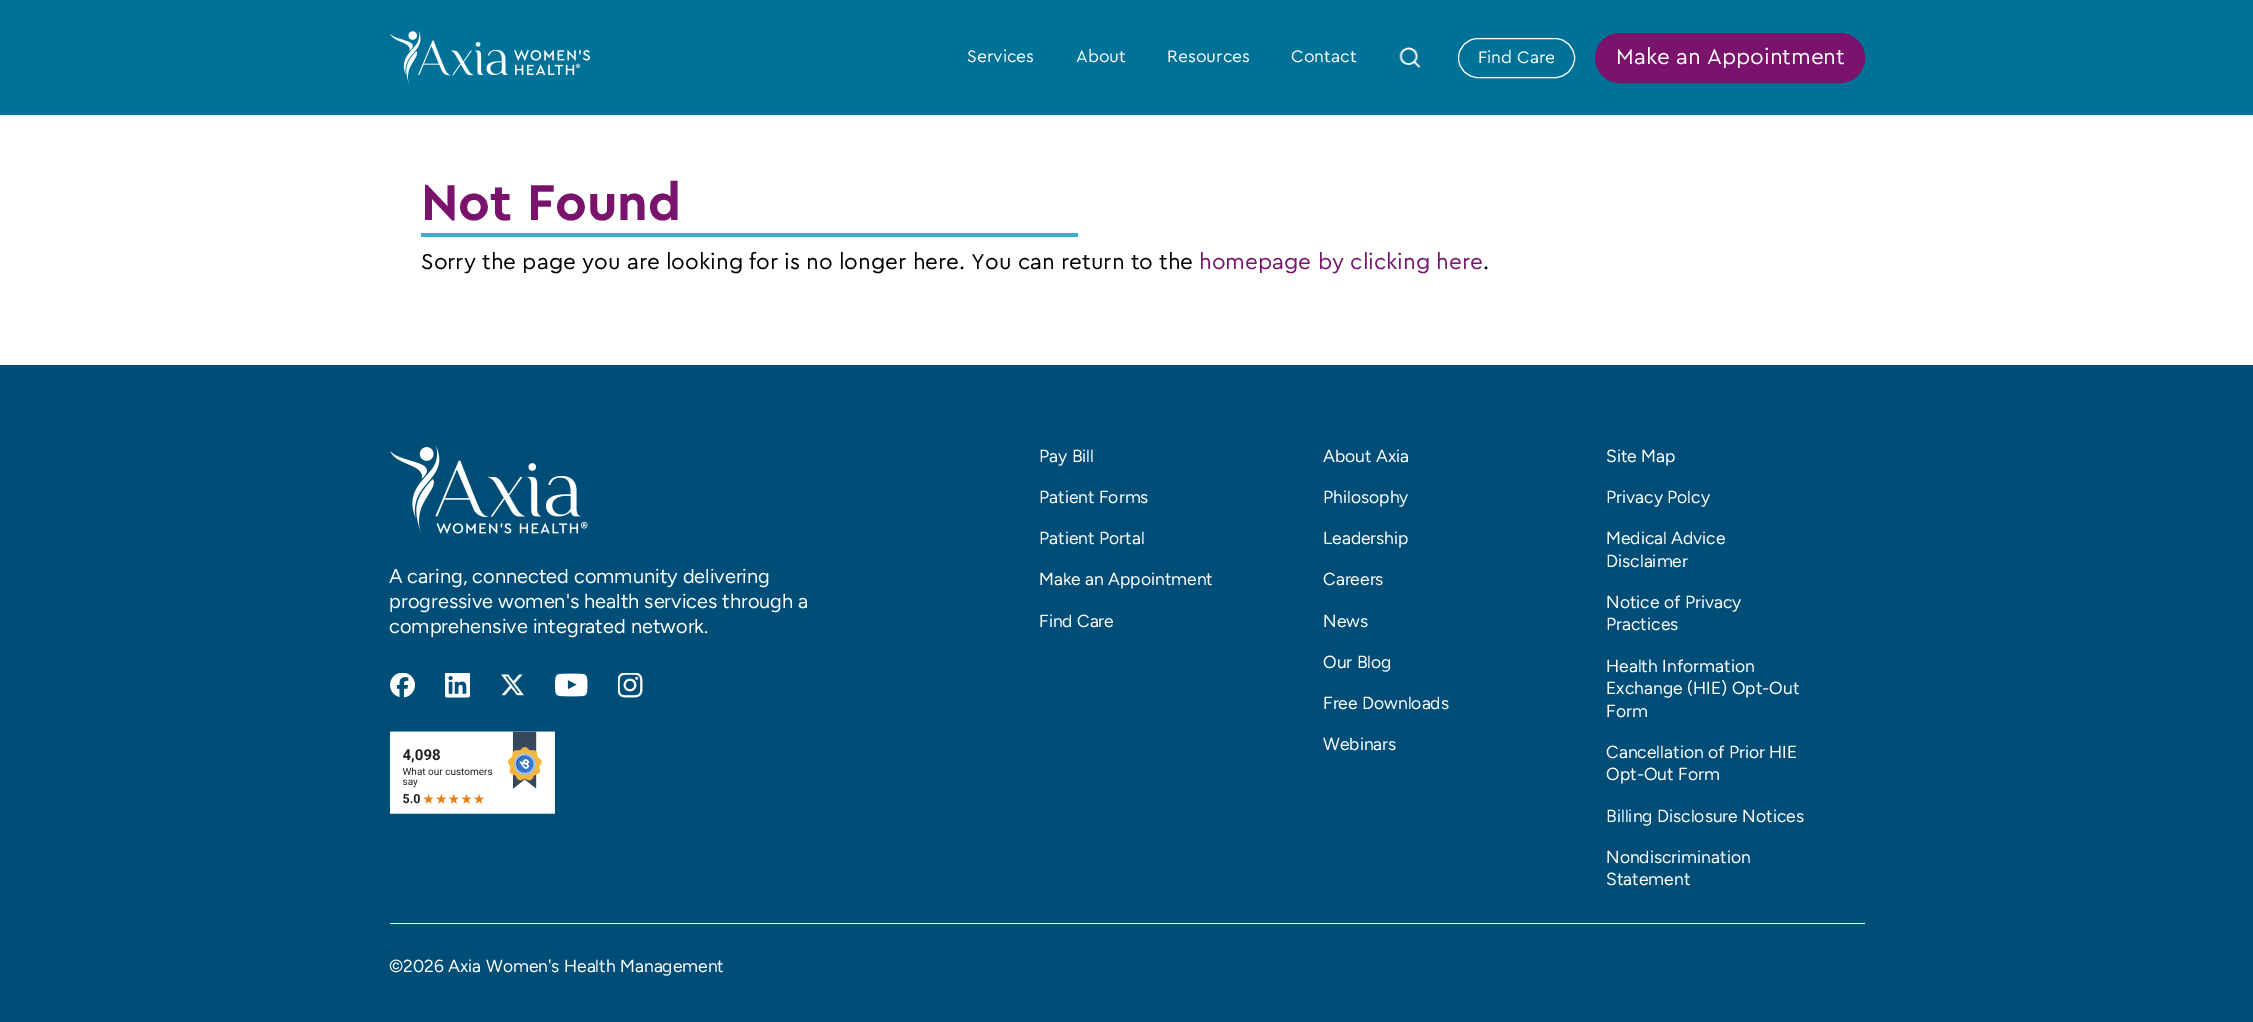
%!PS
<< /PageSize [2253 1022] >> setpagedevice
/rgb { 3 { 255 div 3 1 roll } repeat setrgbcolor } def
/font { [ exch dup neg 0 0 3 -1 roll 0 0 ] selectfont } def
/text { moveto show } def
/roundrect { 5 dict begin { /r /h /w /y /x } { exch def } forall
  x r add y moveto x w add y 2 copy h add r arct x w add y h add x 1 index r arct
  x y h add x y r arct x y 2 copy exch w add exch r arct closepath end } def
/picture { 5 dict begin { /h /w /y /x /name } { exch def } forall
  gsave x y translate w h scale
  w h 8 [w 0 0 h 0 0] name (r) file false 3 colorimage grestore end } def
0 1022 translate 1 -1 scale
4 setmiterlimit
255 255 255 rgb
0 0 2253 1022 rectfill
0 114 152 rgb
0 0 2253 115 rectfill
(img_01.rgb) 390 30 200 54 picture
(img_02.rgb) 1399 47 22 21 picture
255 255 255 rgb
1458.5 38.5 116 39 19.5 roundrect stroke
122 19 108 rgb
1595.5 33.5 269 49 24.5 roundrect gsave fill grestore
stroke
58 175 199 rgb
421 233 657 4 rectfill
0 78 119 rgb
0 365 2253 657 rectfill
(img_03.rgb) 390 445 198 89 picture
(img_04.rgb) 390 673 25 25 picture
(img_05.rgb) 445 673 25 25 picture
(img_06.rgb) 501 674 23 22 picture
(img_07.rgb) 555 673 33 24 picture
(img_08.rgb) 618 673 25 25 picture
(img_09.rgb) 390 731 165 83 picture
255 255 255 rgb
390 923 1475 1 rectfill
/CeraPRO-Regular 17.5 font
(Services) 967 62 text
(About) 1076 62 text
(Resources) 1167 62 text
(Contact) 1291 62 text
(Find Care) 1478 63 text
/CeraPRO-Regular 22.5 font
(Make an Appointment) 1616 64 text
/CeraPRO-Bold 52.5 font
122 19 108 rgb
(Not Found) 421 220 text
/CeraPRO-Regular 22.5 font
0 0 0 rgb
(Sorry the page you are looking for is no longer here. You can return to the) 421 269 text
122 19 108 rgb
(homepage by clicking here) 1199 269 text
0 0 0 rgb
(.) 1483 269 text
/Figtree-Regular 20 font
255 255 255 rgb
(A caring, connected community delivering) 389 583 text
(progressive women's health services through a) 389 608 text
(comprehensive integrated network.) 389 633 text
/Figtree-Regular 17.5 font
(Pay Bill) 1039 462 text
(Patient Forms) 1039 503 text
(Patient Portal) 1039 544 text
(Make an Appointment) 1039 585 text
(Find Care) 1039 627 text
(About Axia) 1323 462 text
(Philosophy) 1323 503 text
(Leadership) 1323 544 text
(Careers) 1323 585 text
(News) 1323 627 text
(Our Blog) 1323 668 text
(Free Downloads) 1323 709 text
(Webinars) 1323 750 text
(Site Map) 1606 462 text
(Privacy Polcy) 1606 503 text
(Medical Advice) 1606 544 text
(Disclaimer) 1606 567 text
(Notice of Privacy) 1606 608 text
(Practices) 1606 630 text
(Health Information) 1606 672 text
(Exchange \(HIE\) Opt-Out) 1606 694 text
(Form) 1606 717 text
(Cancellation of Prior HIE) 1606 758 text
(Opt-Out Form) 1606 780 text
(Billing Disclosure Notices) 1606 822 text
(Nondiscrimination) 1606 863 text
(Statement) 1606 885 text
(©2026 Axia Women's Health Management) 389 972 text
showpage
